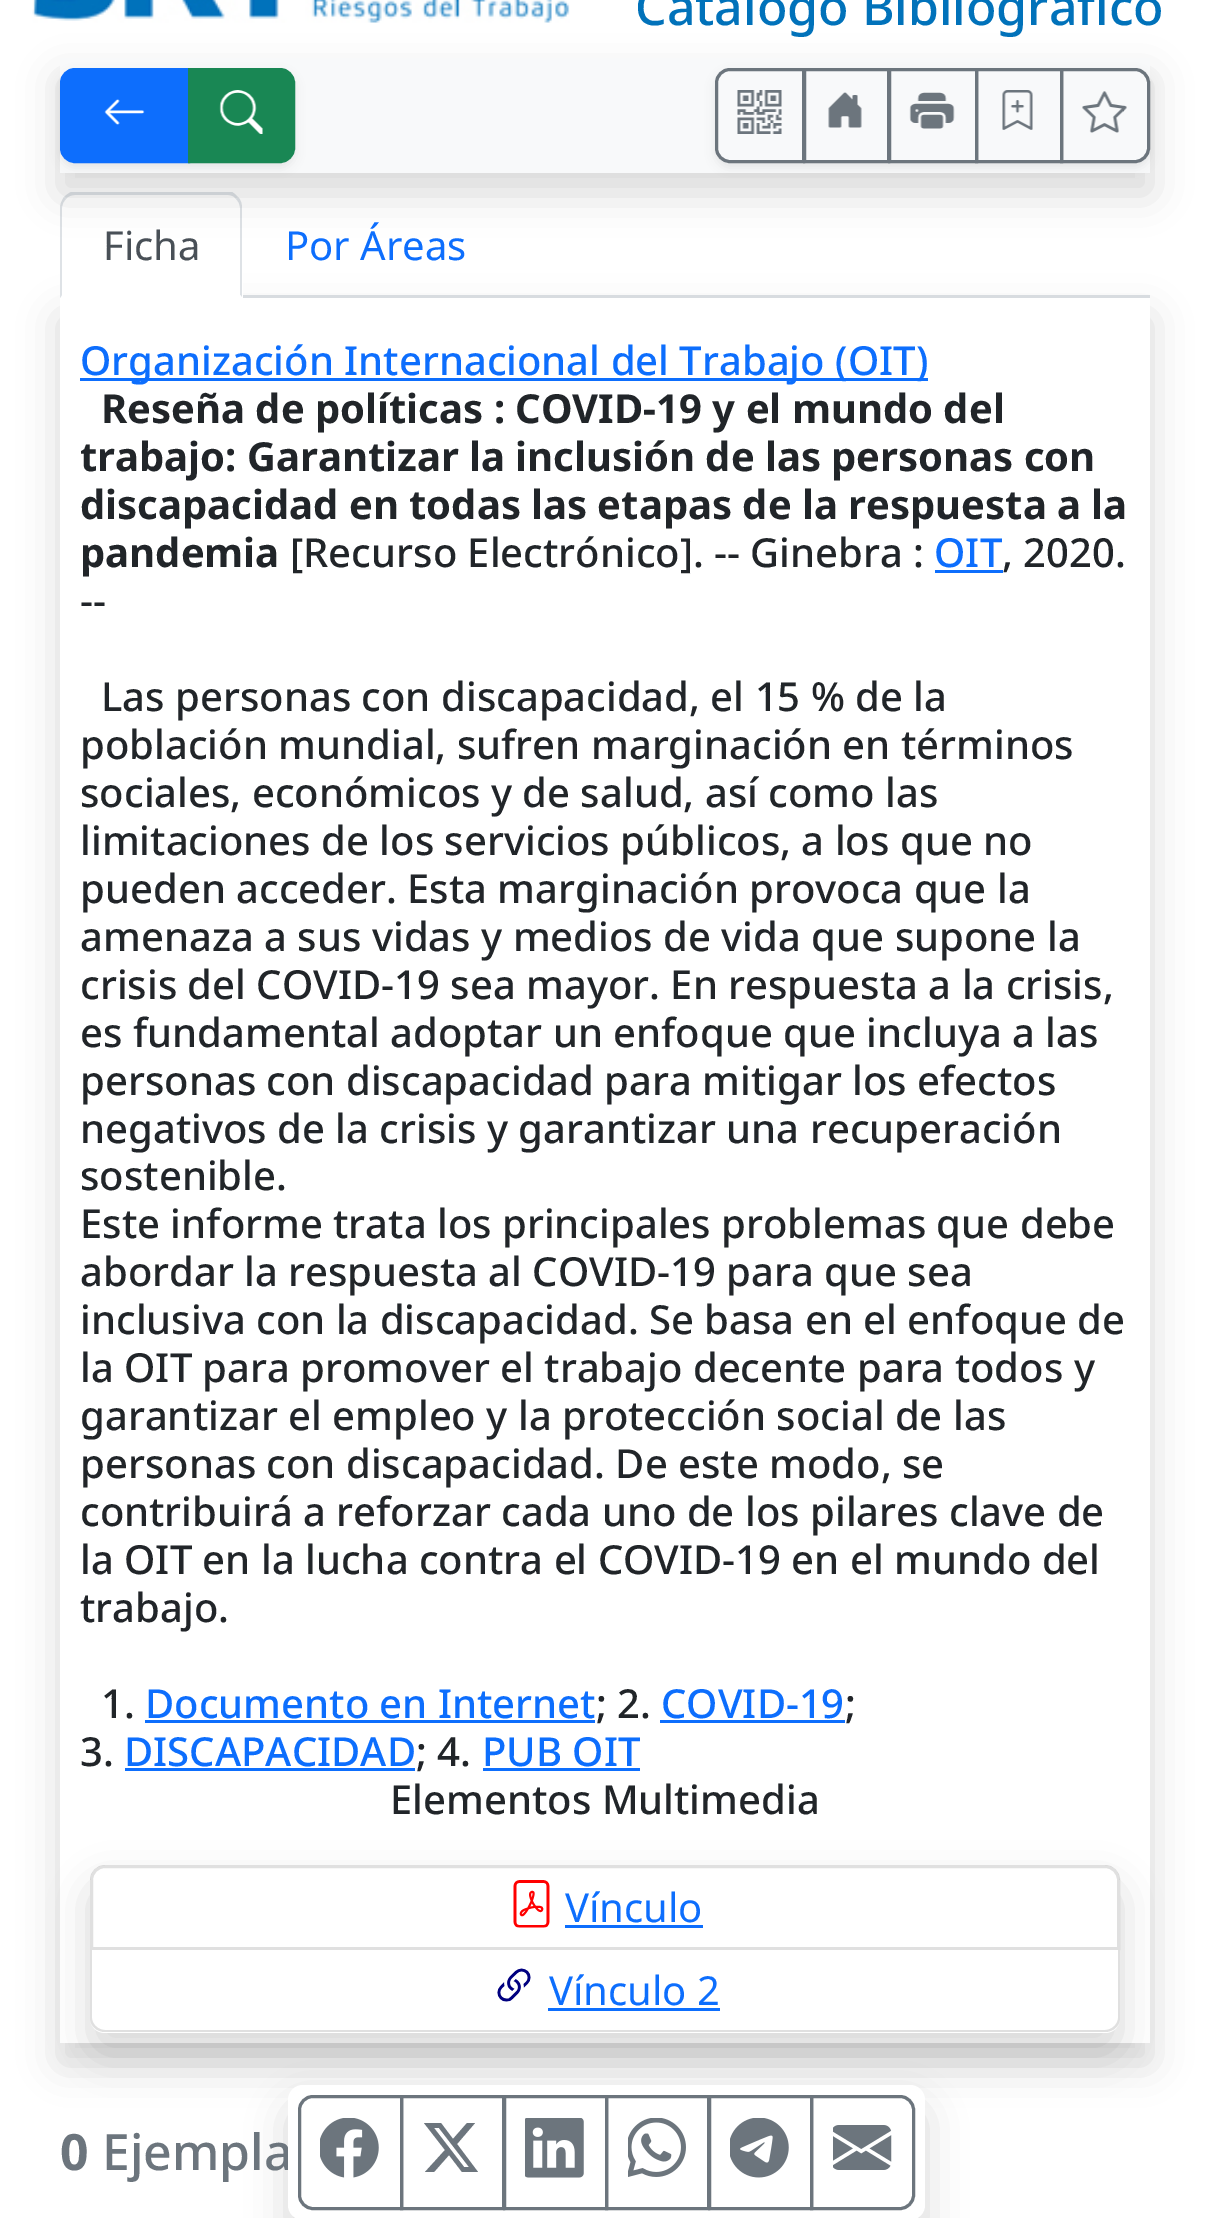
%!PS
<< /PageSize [1208 2218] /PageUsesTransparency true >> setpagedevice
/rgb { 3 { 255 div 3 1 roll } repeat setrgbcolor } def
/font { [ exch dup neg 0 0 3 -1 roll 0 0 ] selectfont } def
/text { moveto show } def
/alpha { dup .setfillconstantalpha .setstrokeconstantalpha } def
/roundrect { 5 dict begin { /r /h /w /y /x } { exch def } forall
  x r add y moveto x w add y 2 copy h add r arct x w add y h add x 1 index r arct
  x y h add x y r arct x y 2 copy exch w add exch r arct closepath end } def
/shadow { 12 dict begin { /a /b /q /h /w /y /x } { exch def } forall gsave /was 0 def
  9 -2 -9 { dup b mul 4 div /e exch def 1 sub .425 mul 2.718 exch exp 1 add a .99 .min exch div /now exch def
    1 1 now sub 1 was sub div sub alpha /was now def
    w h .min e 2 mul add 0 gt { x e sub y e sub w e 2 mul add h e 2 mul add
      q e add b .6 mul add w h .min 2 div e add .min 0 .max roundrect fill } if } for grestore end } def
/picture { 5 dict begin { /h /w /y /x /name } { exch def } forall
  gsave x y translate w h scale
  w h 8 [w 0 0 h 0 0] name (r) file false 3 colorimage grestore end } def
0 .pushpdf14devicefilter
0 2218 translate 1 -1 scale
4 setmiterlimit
255 255 255 rgb
0 0 1208 2218 rectfill
(img_01.rgb) 32 0 538 23 picture
222 226 230 rgb
243 295 907 3 rectfill
gsave
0 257 moveto 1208 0 rlineto 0 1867 rlineto -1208 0 rlineto closepath 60 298 moveto 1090 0 rlineto 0 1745 rlineto -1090 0 rlineto closepath eoclip newpath
0 0 0 rgb
60 318 1090 1745 0 20 0.15 shadow
grestore
255 255 255 rgb
75 193 moveto 153 0 rlineto 8.5 0 15 6.5 15 15 rcurveto 0 90 rlineto -183 0 rlineto 0 -90 rlineto 0 -8.5 6.5 -15 15 -15 rcurveto closepath fill
222 226 230 rgb
75 195 moveto -3 0 -7 1 -9 4 rcurveto -2 -2 rlineto 2 -2 5 -4 7 -5 rcurveto 161 0 rlineto 2 1 4 3 6 5 rcurveto -2 2 rlineto -2 -3 -5 -4 -8 -4 rcurveto closepath fill
238 197 moveto 3 3 4 7 4 11 rcurveto 0 89 rlineto -2 -2 rlineto 0 -87 rlineto 0 -4 -2 -7 -4 -9 rcurveto closepath fill
255 255 255 rgb
242 298 moveto -182 0 rlineto 2 -3 rlineto 178 0 rlineto closepath fill
222 226 230 rgb
60 298 moveto 2 -3 rlineto 0 -87 rlineto 0 -4 2 -7 4 -9 rcurveto -2 -2 rlineto -2 3 -4 7 -4 11 rcurveto closepath fill
0 0 0 rgb
60 78 1090 115 0 20 0.15 shadow
248 249 250 rgb
60 58 1090 115 rectfill
0 0 0 rgb
60 73 235 95 15 5 0.07 shadow
13 110 253 rgb
75 69.5 moveto 113.5 0 rlineto 0 92 rlineto -113.5 0 rlineto -7.5 0 -13.5 -6 -13.5 -13.5 rcurveto 0 -65 rlineto 0 -7.5 6 -13.5 13.5 -13.5 rcurveto closepath gsave fill grestore
3 setlinewidth
stroke
(img_02.rgb) 104 99 41 26 picture
25 135 84 rgb
189.5 69.5 moveto 90.5 0 rlineto 7.5 0 13.5 6 13.5 13.5 rcurveto 0 65 rlineto 0 7.5 -6 13.5 -13.5 13.5 rcurveto -90.5 0 rlineto closepath gsave fill grestore
stroke
(img_03.rgb) 219 90 44 44 picture
gsave
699 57 moveto 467 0 rlineto 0 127 rlineto -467 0 rlineto closepath 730 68 moveto 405 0 rlineto 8.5 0 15 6.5 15 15 rcurveto 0 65 rlineto 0 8.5 -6.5 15 -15 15 rcurveto -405 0 rlineto -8.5 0 -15 -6.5 -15 -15 rcurveto 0 -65 rlineto 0 -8.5 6.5 -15 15 -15 rcurveto closepath eoclip newpath
0 0 0 rgb
715 73 435 95 15 5 0.07 shadow
grestore
108 117 125 rgb
730 69.5 moveto 73.5 0 rlineto 0 92 rlineto -73.5 0 rlineto -7.5 0 -13.5 -6 -13.5 -13.5 rcurveto 0 -65 rlineto 0 -7.5 6 -13.5 13.5 -13.5 rcurveto closepath stroke
(img_04.rgb) 737 90 45 44 picture
804.5 69.5 84 92 rectstroke
(img_05.rgb) 828 92 34 36 picture
889.5 69.5 87 92 rectstroke
(img_06.rgb) 909 92 46 37 picture
976.5 69.5 85 92 rectstroke
(img_07.rgb) 1002 90 31 40 picture
1061.5 69.5 moveto 73.5 0 rlineto 7.5 0 13.5 6 13.5 13.5 rcurveto 0 65 rlineto 0 7.5 -6 13.5 -13.5 13.5 rcurveto -73.5 0 rlineto closepath stroke
(img_08.rgb) 1082 91 45 42 picture
13 110 253 rgb
80 378 848 3 rectfill
935 570 68 3 rectfill
145 1720 450 3 rectfill
660 1720 185 3 rectfill
125 1768 290 3 rectfill
483 1768 157 3 rectfill
gsave
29 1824 moveto 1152 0 rlineto 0 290 rlineto -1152 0 rlineto closepath 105 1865 moveto 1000 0 rlineto 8.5 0 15 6.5 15 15 rcurveto 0 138 rlineto 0 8.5 -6.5 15 -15 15 rcurveto -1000 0 rlineto -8.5 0 -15 -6.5 -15 -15 rcurveto 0 -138 rlineto 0 -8.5 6.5 -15 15 -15 rcurveto closepath eoclip newpath
0 0 0 rgb
90 1885 1030 168 15 20 0.15 shadow
grestore
0.12 alpha
0 0 0 rgb
105 1866.5 moveto 1000 0 rlineto 7.5 0 13.5 6 13.5 13.5 rcurveto 0 68.5 rlineto -1027 0 rlineto 0 -68.5 rlineto 0 -7.5 6 -13.5 13.5 -13.5 rcurveto closepath stroke
1 alpha
(img_09.rgb) 513 1880 37 48 picture
13 110 253 rgb
565 1925 138 3 rectfill
255 255 255 rgb
90 1950 moveto 1030 0 rlineto 0 68 rlineto 0 8.5 -6.5 15 -15 15 rcurveto -1000 0 rlineto -8.5 0 -15 -6.5 -15 -15 rcurveto closepath fill
0.12 alpha
0 0 0 rgb
90 1950 moveto 1030 0 rlineto 0 68 rlineto 0 8 -7 14 -15 14 rcurveto -1000 0 rlineto -8 0 -15 -6 -15 -14 rcurveto closepath 92 1950 moveto 1026 0 rlineto 0 68 rlineto 0 6 -6 12 -13 12 rcurveto -1000 0 rlineto -7 0 -13 -6 -13 -12 rcurveto closepath eofill
1 alpha
(img_10.rgb) 497 1968 34 34 picture
13 110 253 rgb
548 2008 172 3 rectfill
gsave
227 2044 moveto 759 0 rlineto 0 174 rlineto -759 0 rlineto closepath 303 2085 moveto 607 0 rlineto 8.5 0 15 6.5 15 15 rcurveto 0 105 rlineto 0 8.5 -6.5 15 -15 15 rcurveto -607 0 rlineto -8.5 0 -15 -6.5 -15 -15 rcurveto 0 -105 rlineto 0 -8.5 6.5 -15 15 -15 rcurveto closepath eoclip newpath
0 0 0 rgb
288 2105 637 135 15 20 0.15 shadow
grestore
/NotoSans-Medium 50 font
1 114 186 rgb
(Catálogo Bibliográfico) 635 25 text
/NotoSans-Regular 40 font
73 80 87 rgb
(Ficha) 103 260 text
13 110 253 rgb
(Por Áreas) 285 260 text
/NotoSans-Medium 40 font
(Organización Internacional del Trabajo \(OIT\)) 80 375 text
/NotoSans-Bold 40 font
33 37 41 rgb
(Reseña de políticas : COVID-19 y el mundo del) 101 423 text
(trabajo: Garantizar la inclusión de las personas con) 80 471 text
(discapacidad en todas las etapas de la respuesta a la) 80 519 text
(pandemia) 80 567 text
/NotoSans-Medium 40 font
([Recurso Electrónico]. -- Ginebra :) 290 567 text
13 110 253 rgb
(OIT) 934 567 text
33 37 41 rgb
(, 2020.) 1002 567 text
(--) 80 615 text
(Las personas con discapacidad, el 15 % de la) 101 711 text
(población mundial, sufren marginación en términos) 80 759 text
(sociales, económicos y de salud, así como las) 80 807 text
(limitaciones de los servicios públicos, a los que no) 80 855 text
(pueden acceder. Esta marginación provoca que la) 80 903 text
(amenaza a sus vidas y medios de vida que supone la) 80 951 text
(crisis del COVID-19 sea mayor. En respuesta a la crisis,) 80 999 text
(es fundamental adoptar un enfoque que incluya a las) 80 1047 text
(personas con discapacidad para mitigar los efectos) 80 1095 text
(negativos de la crisis y garantizar una recuperación) 80 1143 text
(sostenible.) 80 1190 text
(Este informe trata los principales problemas que debe) 80 1238 text
(abordar la respuesta al COVID-19 para que sea) 80 1286 text
(inclusiva con la discapacidad. Se basa en el enfoque de) 80 1334 text
(la OIT para promover el trabajo decente para todos y) 80 1382 text
(garantizar el empleo y la protección social de las) 80 1430 text
(personas con discapacidad. De este modo, se) 80 1478 text
(contribuirá a reforzar cada uno de los pilares clave de) 80 1526 text
(la OIT en la lucha contra el COVID-19 en el mundo del) 80 1574 text
(trabajo.) 80 1622 text
(1.) 101 1718 text
13 110 253 rgb
(Documento en Internet) 145 1718 text
33 37 41 rgb
(; 2.) 596 1718 text
13 110 253 rgb
(COVID-19) 661 1718 text
33 37 41 rgb
(;) 845 1718 text
(3.) 80 1766 text
13 110 253 rgb
(DISCAPACIDAD) 124 1766 text
33 37 41 rgb
(; 4.) 416 1766 text
13 110 253 rgb
(PUB OIT) 482 1766 text
33 37 41 rgb
(Elementos Multimedia) 390 1814 text
/NotoSans-Regular 40 font
13 110 253 rgb
(Vínculo) 565 1922 text
(Vínculo 2) 549 2005 text
/NotoSans-Bold 50 font
108 117 125 rgb
(0) 60 2170 text
/NotoSans-Medium 50 font
(Ejempla) 102 2170 text
255 255 255 rgb
288 2085 637 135 15 roundrect fill
108 117 125 rgb
313 2096.5 moveto 88.5 0 rlineto 0 112 rlineto -88.5 0 rlineto -7.5 0 -13.5 -6 -13.5 -13.5 rcurveto 0 -85 rlineto 0 -7.5 6 -13.5 13.5 -13.5 rcurveto closepath stroke
(img_11.rgb) 320 2118 59 60 picture
401.5 2096.5 102 112 rectstroke
467 2123 moveto 8 0 rlineto -18 21 rlineto 21 28 rlineto -16 0 rlineto -13 -17 rlineto -15 17 rlineto -9 0 rlineto 20 -22 rlineto -21 -27 rlineto 17 0 rlineto 12 16 rlineto closepath 464 2167 moveto 5 0 rlineto -30 -39 rlineto -5 0 rlineto closepath fill
504.5 2096.5 102 112 rectstroke
(img_12.rgb) 525 2118 59 60 picture
606.5 2096.5 102 112 rectstroke
(img_13.rgb) 628 2118 58 59 picture
709.5 2096.5 102 112 rectstroke
(img_14.rgb) 730 2118 59 60 picture
811.5 2096.5 moveto 88.5 0 rlineto 7.5 0 13.5 6 13.5 13.5 rcurveto 0 85 rlineto 0 7.5 -6 13.5 -13.5 13.5 rcurveto -88.5 0 rlineto closepath stroke
(img_15.rgb) 833 2125 59 45 picture
.poppdf14devicefilter showpage
